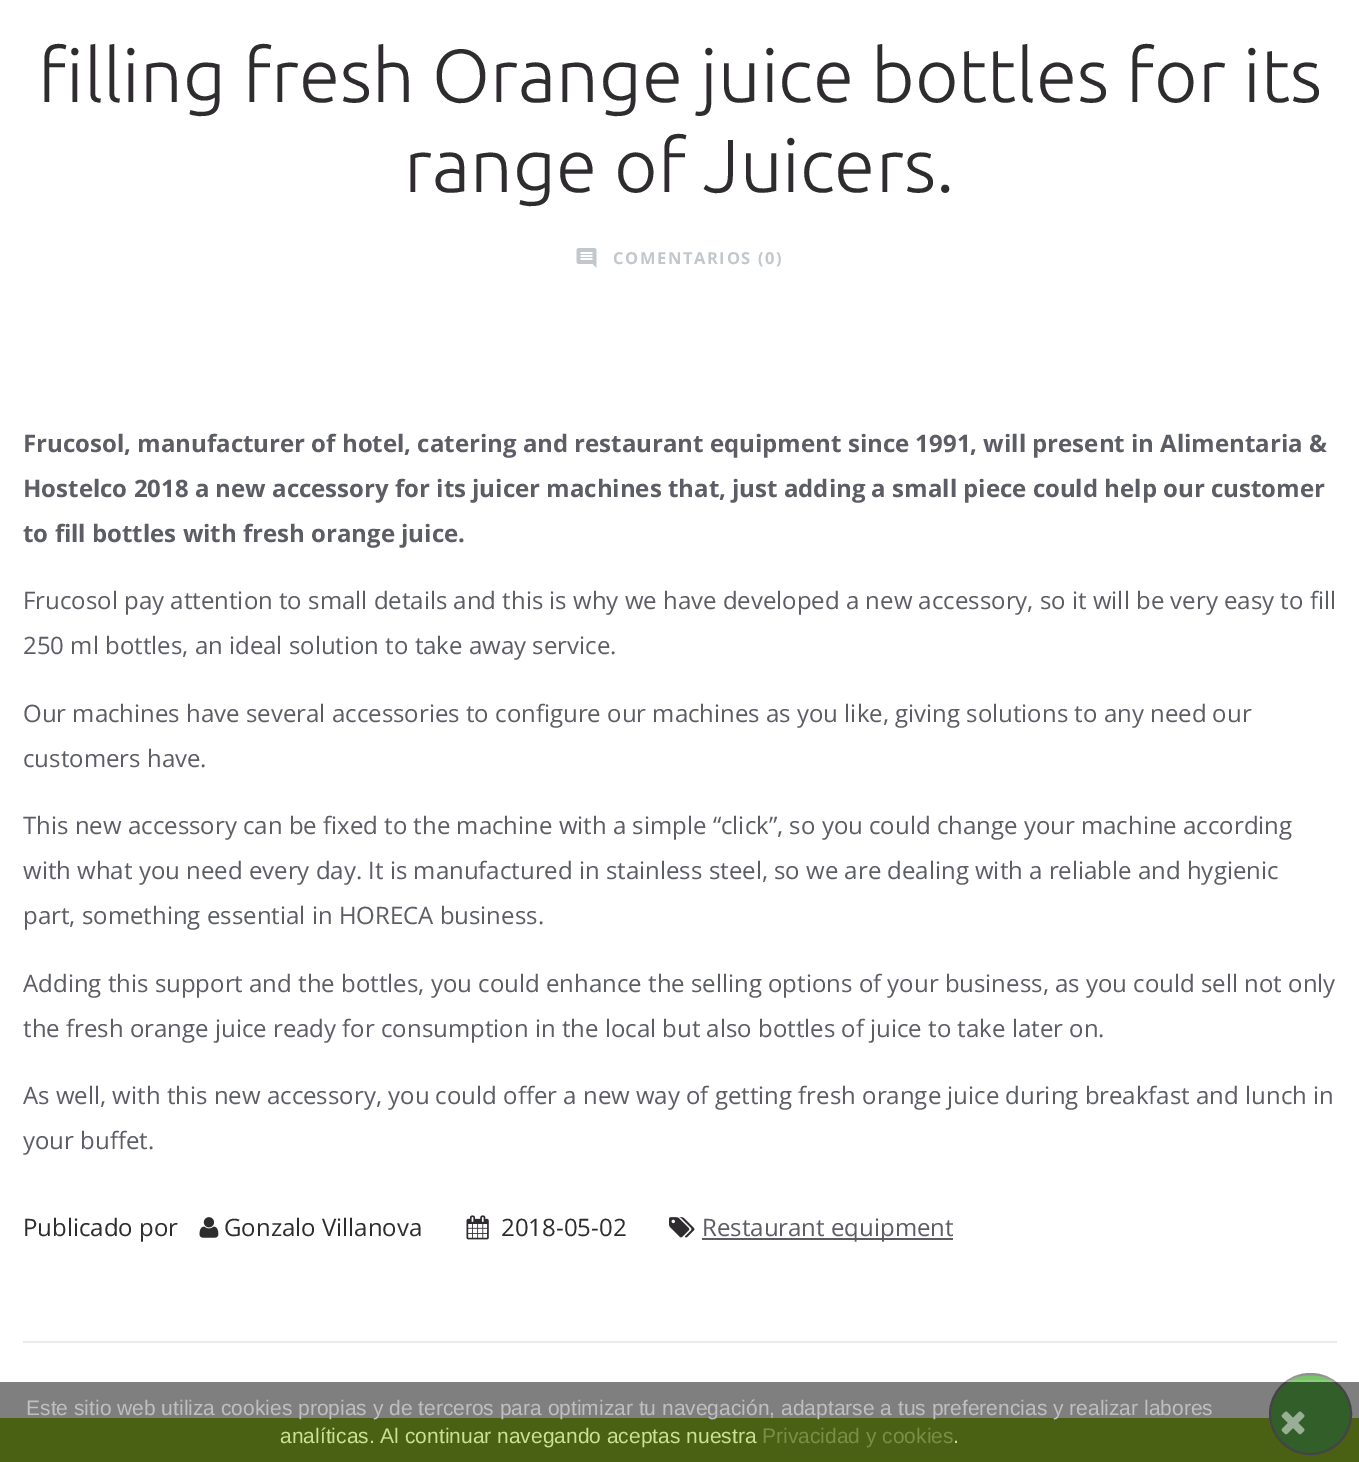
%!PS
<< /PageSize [1359 1462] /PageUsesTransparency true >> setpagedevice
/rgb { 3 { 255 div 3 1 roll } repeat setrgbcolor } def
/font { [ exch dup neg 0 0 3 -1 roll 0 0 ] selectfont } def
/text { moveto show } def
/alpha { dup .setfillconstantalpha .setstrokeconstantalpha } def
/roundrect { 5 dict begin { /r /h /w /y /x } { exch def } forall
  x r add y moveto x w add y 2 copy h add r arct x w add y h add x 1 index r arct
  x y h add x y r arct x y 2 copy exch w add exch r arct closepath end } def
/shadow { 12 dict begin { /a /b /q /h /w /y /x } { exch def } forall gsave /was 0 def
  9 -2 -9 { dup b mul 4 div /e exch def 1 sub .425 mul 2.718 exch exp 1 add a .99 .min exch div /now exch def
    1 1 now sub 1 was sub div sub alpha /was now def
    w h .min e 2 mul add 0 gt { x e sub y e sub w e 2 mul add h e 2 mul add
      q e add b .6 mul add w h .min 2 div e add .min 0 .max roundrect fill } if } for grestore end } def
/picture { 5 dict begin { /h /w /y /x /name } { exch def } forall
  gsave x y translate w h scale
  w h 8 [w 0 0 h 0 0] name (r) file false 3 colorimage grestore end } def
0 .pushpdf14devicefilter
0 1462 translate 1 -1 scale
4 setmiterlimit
255 255 255 rgb
0 0 1359 1462 rectfill
235 235 235 rgb
23 1341 1314 2 rectfill
(img_01.rgb) 576 248 21 20 picture
(img_02.rgb) 199 1217 20 21 picture
(img_03.rgb) 466 1215 23 25 picture
(img_04.rgb) 669 1217 26 21 picture
92 93 101 rgb
702 1238 251 2 rectfill
149 193 38 rgb
0 1418 1359 44 rectfill
101 188 84 rgb
1270 1374 81 80 40 roundrect gsave fill grestore
136 136 136 rgb
2 setlinewidth
stroke
gsave
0 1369 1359 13 rectclip
255 255 255 rgb
0 1382 1359 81 0 7.5 0.5 shadow
grestore
0.5 alpha
0 0 0 rgb
0 1382 1359 80 rectfill
1 alpha
(img_05.rgb) 1281 1411 24 24 picture
/Ubuntu-Light 75 font
47 44 47 rgb
(filling fresh Orange juice bottles for its) 38 102 text
(range of Juicers.) 404 192 text
/OpenSans-Bold 16.5 font
193 199 203 rgb
613 264 moveto 1.6 0 (COMENTARIOS \(0\)) ashow
/OpenSans-Bold 24 font
92 93 101 rgb
(Frucosol, manufacturer of hotel, catering and restaurant equipment since 1991, will present in Alimentaria &) 23 452 text
(Hostelco 2018 a new accessory for its juicer machines that, just adding a small piece could help our customer) 23 497 text
(to fill bottles with fresh orange juice.) 23 542 text
/OpenSans-Regular 24 font
(Frucosol pay attention to small details and this is why we have developed a new accessory, so it will be very easy to fill) 23 609 text
(250 ml bottles, an ideal solution to take away service.) 23 654 text
(Our machines have several accessories to configure our machines as you like, giving solutions to any need our) 23 722 text
(customers have.) 23 767 text
(This new accessory can be fixed to the machine with a simple “click”, so you could change your machine according) 23 834 text
(with what you need every day. It is manufactured in stainless steel, so we are dealing with a reliable and hygienic) 23 879 text
(part, something essential in HORECA business.) 23 924 text
(Adding this support and the bottles, you could enhance the selling options of your business, as you could sell not only) 23 992 text
(the fresh orange juice ready for consumption in the local but also bottles of juice to take later on.) 23 1037 text
(As well, with this new accessory, you could offer a new way of getting fresh orange juice during breakfast and lunch in) 23 1104 text
(your buffet.) 23 1149 text
47 44 47 rgb
(Publicado por) 23 1236 text
(Gonzalo Villanova) 224 1236 text
(2018-05-02) 501 1236 text
92 93 101 rgb
(Restaurant equipment) 702 1236 text
/LiberationSans-Regular 21 font
191 191 191 rgb
(Este sitio web utiliza cookies propias y de terceros para optimizar tu navegación, adaptarse a tus preferencias y realizar labores) 26 1415 text
202 224 147 rgb
(analíticas. Al continuar navegando aceptas nuestra) 280 1443 text
121 143 70 rgb
(Privacidad y cookies) 762 1443 text
202 224 147 rgb
(.) 953 1443 text
.poppdf14devicefilter showpage
